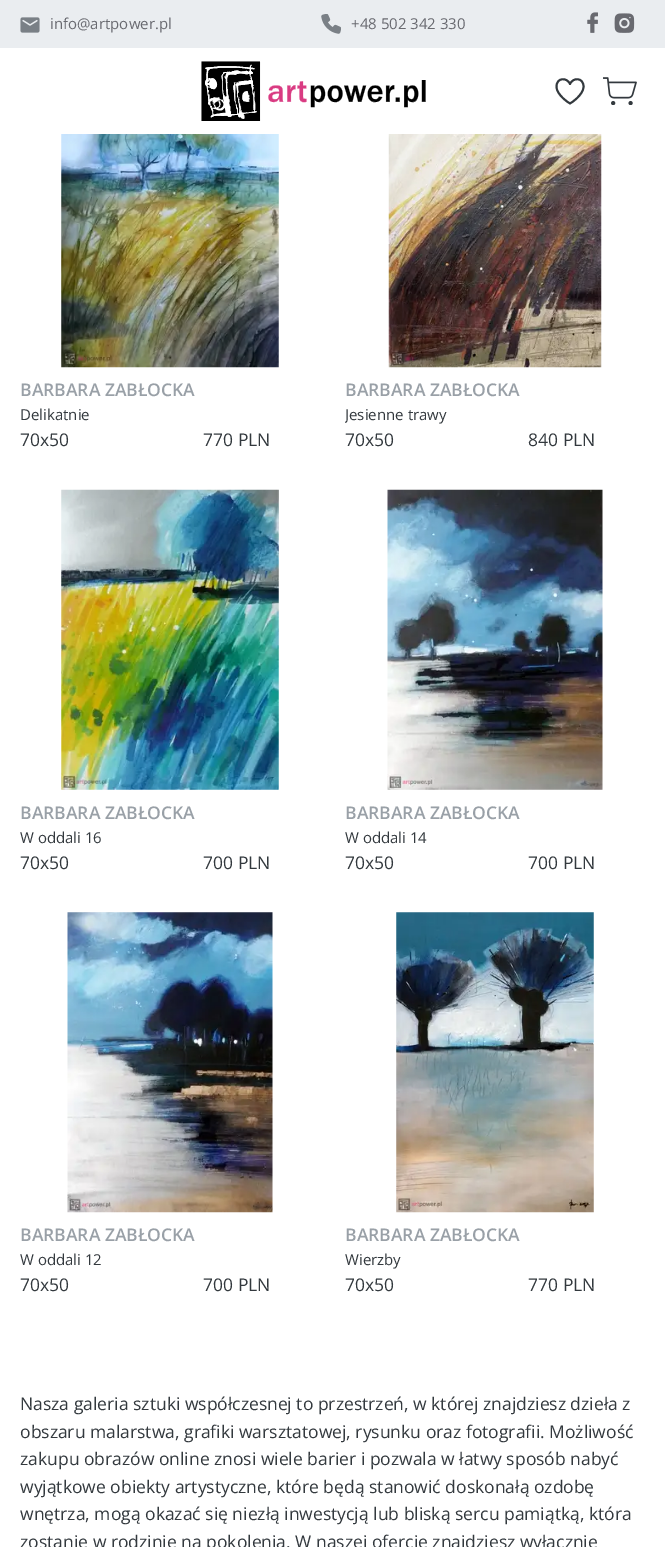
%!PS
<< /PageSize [665 1547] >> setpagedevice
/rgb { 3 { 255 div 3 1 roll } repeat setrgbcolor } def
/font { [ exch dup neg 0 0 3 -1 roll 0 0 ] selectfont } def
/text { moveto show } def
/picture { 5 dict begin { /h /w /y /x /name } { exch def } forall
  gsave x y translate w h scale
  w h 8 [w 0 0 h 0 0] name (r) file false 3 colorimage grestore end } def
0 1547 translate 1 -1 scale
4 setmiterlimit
255 255 255 rgb
0 0 665 1547 rectfill
234 237 240 rgb
0 0 665 48 rectfill
(img_01.rgb) 20 17 20 16 picture
(img_02.rgb) 321 14 20 20 picture
(img_03.rgb) 587 12 11 21 picture
(img_04.rgb) 614 13 21 20 picture
(img_05.rgb) 201 61 225 60 picture
51 57 62 rgb
1.9 setlinewidth
1 setlinecap
1 setlinejoin
570 103.5 moveto 0 0 -13.5 -8 -13.5 -17 rcurveto 0 -9 10.5 -9.5 13.5 -2.5 rcurveto 3 -7 13.5 -6.5 13.5 2.5 rcurveto 0 9 -13.5 17 -13.5 17 rcurveto closepath stroke
(img_06.rgb) 603 77 34 28 picture
(img_07.rgb) 61 134 218 234 picture
(img_08.rgb) 388 134 214 234 picture
(img_09.rgb) 61 489 218 301 picture
(img_10.rgb) 387 489 216 301 picture
(img_11.rgb) 67 912 206 301 picture
(img_12.rgb) 396 912 198 301 picture
/OpenSans-Regular 15 font
105 106 112 rgb
(info@artpower.pl) 50 29 text
(+48 502 342 330) 351 29 text
/OpenSans-SemiBold 17.5 font
153 160 167 rgb
(BARBARA ZABŁOCKA) 20 396 text
/OpenSans-Regular 15 font
51 57 62 rgb
(Delikatnie) 20 420 text
/OpenSans-Regular 17.5 font
(70x50) 20 446 text
(770 PLN) 203 446 text
/OpenSans-SemiBold 17.5 font
153 160 167 rgb
(BARBARA ZABŁOCKA) 345 396 text
gsave
345 403 300 22 rectclip
/OpenSans-Regular 15 font
51 57 62 rgb
(Jesienne trawy) 345 420 text
grestore
/OpenSans-Regular 17.5 font
51 57 62 rgb
(70x50) 345 446 text
(840 PLN) 528 446 text
/OpenSans-SemiBold 17.5 font
153 160 167 rgb
(BARBARA ZABŁOCKA) 20 819 text
/OpenSans-Regular 15 font
51 57 62 rgb
(W oddali 16) 20 843 text
/OpenSans-Regular 17.5 font
(70x50) 20 869 text
(700 PLN) 203 869 text
/OpenSans-SemiBold 17.5 font
153 160 167 rgb
(BARBARA ZABŁOCKA) 345 819 text
/OpenSans-Regular 15 font
51 57 62 rgb
(W oddali 14) 345 843 text
/OpenSans-Regular 17.5 font
(70x50) 345 869 text
(700 PLN) 528 869 text
/OpenSans-SemiBold 17.5 font
153 160 167 rgb
(BARBARA ZABŁOCKA) 20 1241 text
/OpenSans-Regular 15 font
51 57 62 rgb
(W oddali 12) 20 1265 text
/OpenSans-Regular 17.5 font
(70x50) 20 1291 text
(700 PLN) 203 1291 text
/OpenSans-SemiBold 17.5 font
153 160 167 rgb
(BARBARA ZABŁOCKA) 345 1241 text
/OpenSans-Regular 15 font
51 57 62 rgb
(Wierzby) 345 1265 text
/OpenSans-Regular 17.5 font
(70x50) 345 1291 text
(770 PLN) 528 1291 text
(Nasza galeria sztuki współczesnej to przestrzeń, w której znajdziesz dzieła z) 20 1410 text
(obszaru malarstwa, grafiki warsztatowej, rysunku oraz fotografii. Możliwość) 20 1438 text
(zakupu obrazów online znosi wiele barier i pozwala w łatwy sposób nabyć) 20 1465 text
(wyjątkowe obiekty artystyczne, które będą stanowić doskonałą ozdobę) 20 1493 text
(wnętrza, mogą okazać się niezłą inwestycją lub bliską sercu pamiątką, która) 20 1520 text
(zostanie w rodzinie na pokolenia. W naszej ofercie znajdziesz wyłącznie) 20 1548 text
showpage
